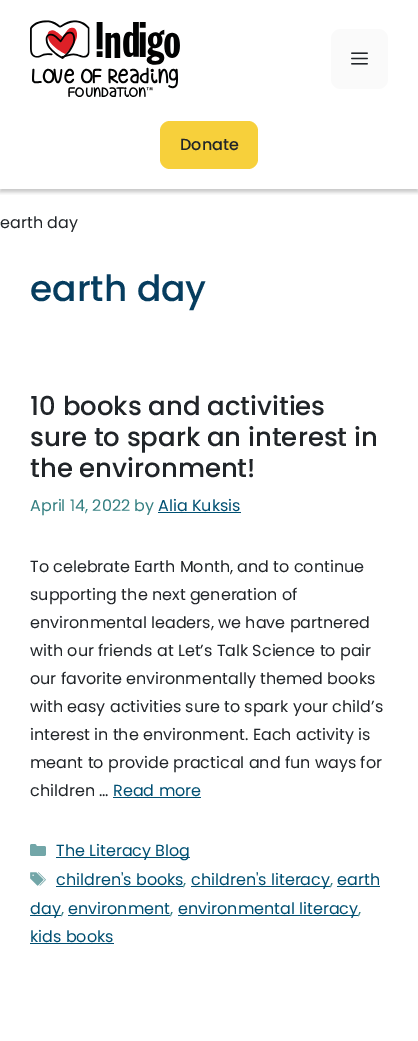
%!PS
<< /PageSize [418 1041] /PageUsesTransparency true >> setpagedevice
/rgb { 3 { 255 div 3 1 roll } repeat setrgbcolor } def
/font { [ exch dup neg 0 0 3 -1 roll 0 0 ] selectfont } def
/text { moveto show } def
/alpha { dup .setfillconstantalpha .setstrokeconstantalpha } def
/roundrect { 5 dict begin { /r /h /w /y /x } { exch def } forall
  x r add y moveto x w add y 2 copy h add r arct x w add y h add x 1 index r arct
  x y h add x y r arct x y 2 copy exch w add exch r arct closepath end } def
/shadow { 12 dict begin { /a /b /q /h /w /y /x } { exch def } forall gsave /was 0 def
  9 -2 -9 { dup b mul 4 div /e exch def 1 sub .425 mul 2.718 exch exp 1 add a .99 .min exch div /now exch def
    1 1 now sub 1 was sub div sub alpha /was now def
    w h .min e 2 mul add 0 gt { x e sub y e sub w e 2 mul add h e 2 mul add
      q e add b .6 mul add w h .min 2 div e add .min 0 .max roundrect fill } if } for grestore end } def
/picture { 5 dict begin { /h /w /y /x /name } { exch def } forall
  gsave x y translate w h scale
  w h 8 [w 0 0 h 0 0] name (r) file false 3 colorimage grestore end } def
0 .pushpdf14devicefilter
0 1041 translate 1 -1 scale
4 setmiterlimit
255 255 255 rgb
0 0 418 1041 rectfill
gsave
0 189 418 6 rectclip
0 0 0 rgb
0 3 418 189 0 2 0.23 shadow
grestore
(img_01.rgb) 30 20 150 77 picture
250 250 250 rgb
331 29 57 60 10 roundrect fill
(img_02.rgb) 351 52 17 13 picture
247 208 59 rgb
160 121 98 48 10 roundrect fill
0 79 114 rgb
158 512 83 1 rectfill
113 797 88 1 rectfill
(img_03.rgb) 30 844 16 12 picture
56 857 134 1 rectfill
(img_04.rgb) 30 872 16 14 picture
56 886 127 1 rectfill
191 886 139 1 rectfill
337 886 43 1 rectfill
30 915 31 1 rectfill
68 915 102 1 rectfill
178 915 180 1 rectfill
30 943 84 1 rectfill
/Poppins-Medium 16 font
33 37 41 rgb
(Donate) 180 150 text
/Poppins-Regular 16 font
(earth day) 0 228 text
/Poppins-Medium 36 font
6 61 95 rgb
(earth day) 30 301 text
/Poppins-Medium 26 font
33 37 41 rgb
(10 books and activities) 30 415 text
(sure to spark an interest in) 30 446 text
(the environment!) 30 477 text
/Poppins-Regular 16 font
53 128 130 rgb
(April 14, 2022 by) 30 511 text
0 79 114 rgb
(Alia Kuksis) 158 511 text
33 37 41 rgb
(To celebrate Earth Month, and to continue) 30 572 text
(supporting the next generation of) 30 600 text
(environmental leaders, we have partnered) 30 628 text
(with our friends at Let’s Talk Science to pair) 30 656 text
(our favorite environmentally themed books) 30 684 text
(with easy activities sure to spark your child’s) 30 712 text
(interest in the environment. Each activity is) 30 740 text
(meant to provide practical and fun ways for) 30 768 text
(children …) 30 796 text
0 79 114 rgb
(Read more) 113 796 text
(The Literacy Blog) 56 856 text
(children's books) 56 885 text
53 128 130 rgb
(,) 183 885 text
0 79 114 rgb
(children's literacy) 191 885 text
53 128 130 rgb
(,) 330 885 text
0 79 114 rgb
(earth) 337 885 text
(day) 30 914 text
53 128 130 rgb
(,) 61 914 text
0 79 114 rgb
(environment) 68 914 text
53 128 130 rgb
(,) 170 914 text
0 79 114 rgb
(environmental literacy) 178 914 text
53 128 130 rgb
(,) 358 914 text
0 79 114 rgb
(kids books) 30 942 text
.poppdf14devicefilter showpage
